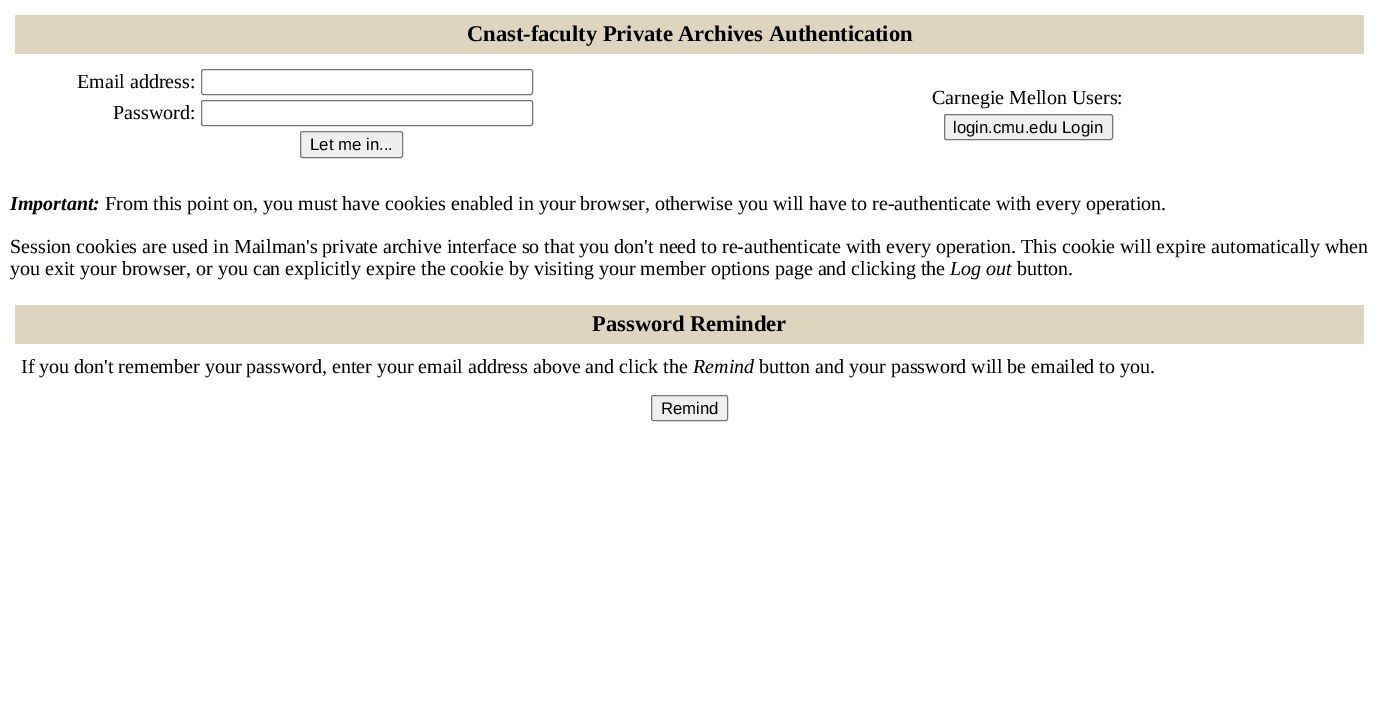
%!PS
<< /PageSize [1378 716] >> setpagedevice
/rgb { 3 { 255 div 3 1 roll } repeat setrgbcolor } def
/font { [ exch dup neg 0 0 3 -1 roll 0 0 ] selectfont } def
/text { moveto show } def
/roundrect { 5 dict begin { /r /h /w /y /x } { exch def } forall
  x r add y moveto x w add y 2 copy h add r arct x w add y h add x 1 index r arct
  x y h add x y r arct x y 2 copy exch w add exch r arct closepath end } def
0 716 translate 1 -1 scale
4 setmiterlimit
255 255 255 rgb
0 0 1378 716 rectfill
221 213 190 rgb
15 15 1349 39 rectfill
118 118 118 rgb
201.5 69.5 331 25 2 roundrect stroke
201.5 100.5 331 25 2 roundrect stroke
239 239 239 rgb
300.5 131.5 102 26 2 roundrect gsave fill grestore
118 118 118 rgb
stroke
239 239 239 rgb
944.5 114.5 168 25 2 roundrect gsave fill grestore
118 118 118 rgb
stroke
221 213 190 rgb
15 305 1349 39 rectfill
239 239 239 rgb
651.5 395.5 76 25 2 roundrect gsave fill grestore
118 118 118 rgb
stroke
/LiberationSerif-Bold 22.5 font
0 0 0 rgb
(Cnast-faculty Private Archives Authentication) 467 41 text
/LiberationSerif-Regular 20 font
(Email address:) 77 88 text
(Password:) 113 119 text
/LiberationSans-Regular 16.75 font
(Let me in...) 310 150 text
/LiberationSerif-Regular 20 font
(Carnegie Mellon Users:) 932 104 text
/LiberationSans-Regular 16.75 font
(login.cmu.edu Login) 953 133 text
/LiberationSerif-BoldItalic 20 font
(Important:) 10 210 text
/LiberationSerif-Regular 20 font
(From this point on, you must have cookies enabled in your browser, otherwise you will have to re-authenticate with every operation.) 105 210 text
(Session cookies are used in Mailman's private archive interface so that you don't need to re-authenticate with every operation. This cookie will expire automatically when) 10 253 text
(you exit your browser, or you can explicitly expire the cookie by visiting your member options page and clicking the) 10 275 text
/LiberationSerif-Italic 20 font
(Log out) 950 275 text
/LiberationSerif-Regular 20 font
(button.) 1017 275 text
/LiberationSerif-Bold 22.5 font
(Password Reminder) 592 331 text
/LiberationSerif-Regular 20 font
(If you don't remember your password, enter your email address above and click the) 21 373 text
/LiberationSerif-Italic 20 font
(Remind) 693 373 text
/LiberationSerif-Regular 20 font
(button and your password will be emailed to you.) 759 373 text
/LiberationSans-Regular 16.75 font
(Remind) 661 414 text
showpage
